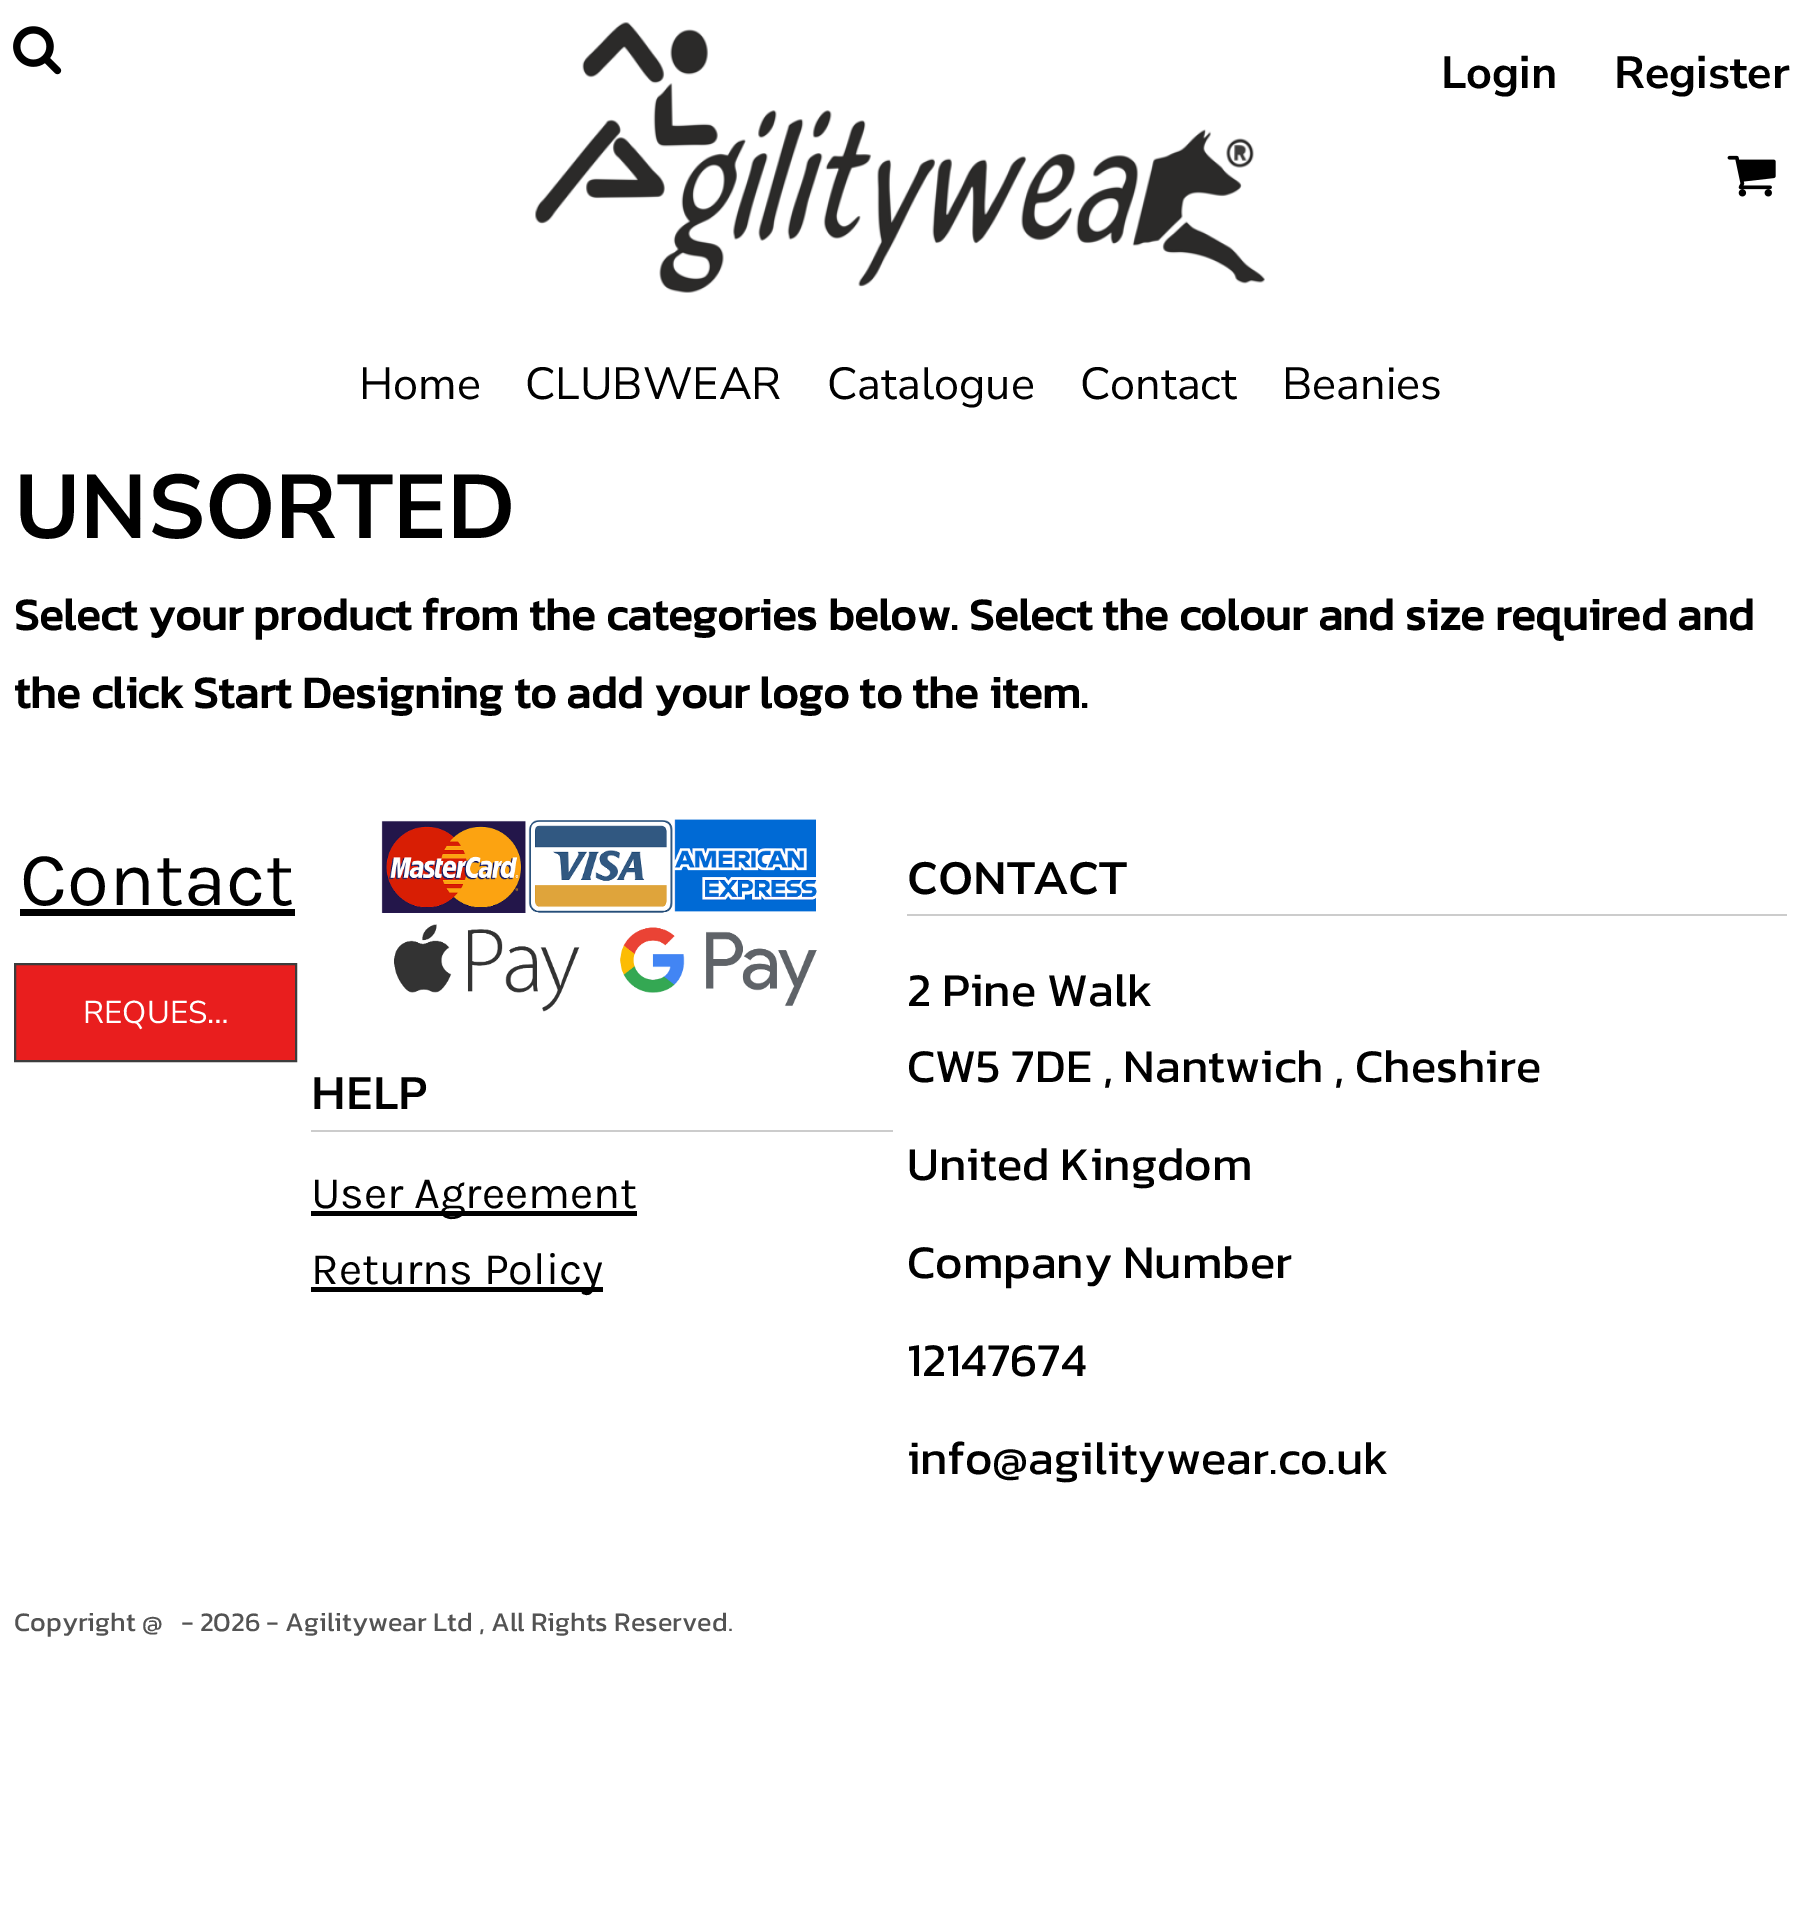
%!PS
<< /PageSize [1798 1930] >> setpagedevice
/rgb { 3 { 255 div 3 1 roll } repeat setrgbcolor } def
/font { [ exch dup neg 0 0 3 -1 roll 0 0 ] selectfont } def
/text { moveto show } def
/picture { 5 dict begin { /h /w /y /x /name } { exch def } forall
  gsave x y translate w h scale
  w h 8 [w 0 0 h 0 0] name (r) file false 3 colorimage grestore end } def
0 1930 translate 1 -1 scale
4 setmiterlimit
255 255 255 rgb
0 0 1798 1930 rectfill
(img_01.rgb) 13 26 49 49 picture
(img_02.rgb) 535 22 730 271 picture
(img_03.rgb) 1727 155 49 42 picture
0 0 0 rgb
20 909 275 7 rectfill
233 30 30 rgb
15 964 moveto 281 0 rlineto 0 97 rlineto -281 0 rlineto closepath gsave fill grestore
60 60 60 rgb
2 setlinewidth
stroke
(img_04.rgb) 381 819 436 193 picture
204 204 204 rgb
311 1130 582 2 rectfill
0 0 0 rgb
311 1211 326 5 rectfill
311 1287 292 5 rectfill
204 204 204 rgb
907 914 880 2 rectfill
/NunitoSans-Bold 45 font
0 0 0 rgb
(Login) 1441 88 text
(Register) 1614 88 text
/NunitoSans-Regular 45 font
(Home) 359 399 text
(CLUBWEAR) 525 399 text
(Catalogue) 827 399 text
(Contact) 1080 399 text
(Beanies) 1282 399 text
/NunitoSans-Bold 90 font
(UNSORTED) 14 538 text
/Kanit-Bold 45 font
(Select your product from the categories below. Select the colour and size required and) 14 630 text
(the click Start Designing to add your logo to the item.) 14 708 text
/Karla-Regular 76.5 font
(Contact) 20 905 text
/NunitoSans-Regular 31.5 font
255 255 255 rgb
(REQUES…) 83 1023 text
/NunitoSans-Bold 45 font
0 0 0 rgb
(HELP) 311 1109 text
/Karla-Regular 45 font
(User Agreement) 311 1208 text
(Returns Policy) 311 1284 text
/NunitoSans-Bold 45 font
(CONTACT) 907 894 text
/Kanit-Regular 47.25 font
(2 Pine Walk) 907 1006 text
(CW5 7DE , Nantwich , Cheshire) 907 1082 text
(United Kingdom) 907 1180 text
(Company Number) 907 1278 text
(12147674) 907 1376 text
(info@agilitywear.co.uk) 907 1474 text
/Kanit-Regular 27 font
83 83 83 rgb
(Copyright @   - 2026 - Agilitywear Ltd , All Rights Reserved.) 14 1631 text
showpage
